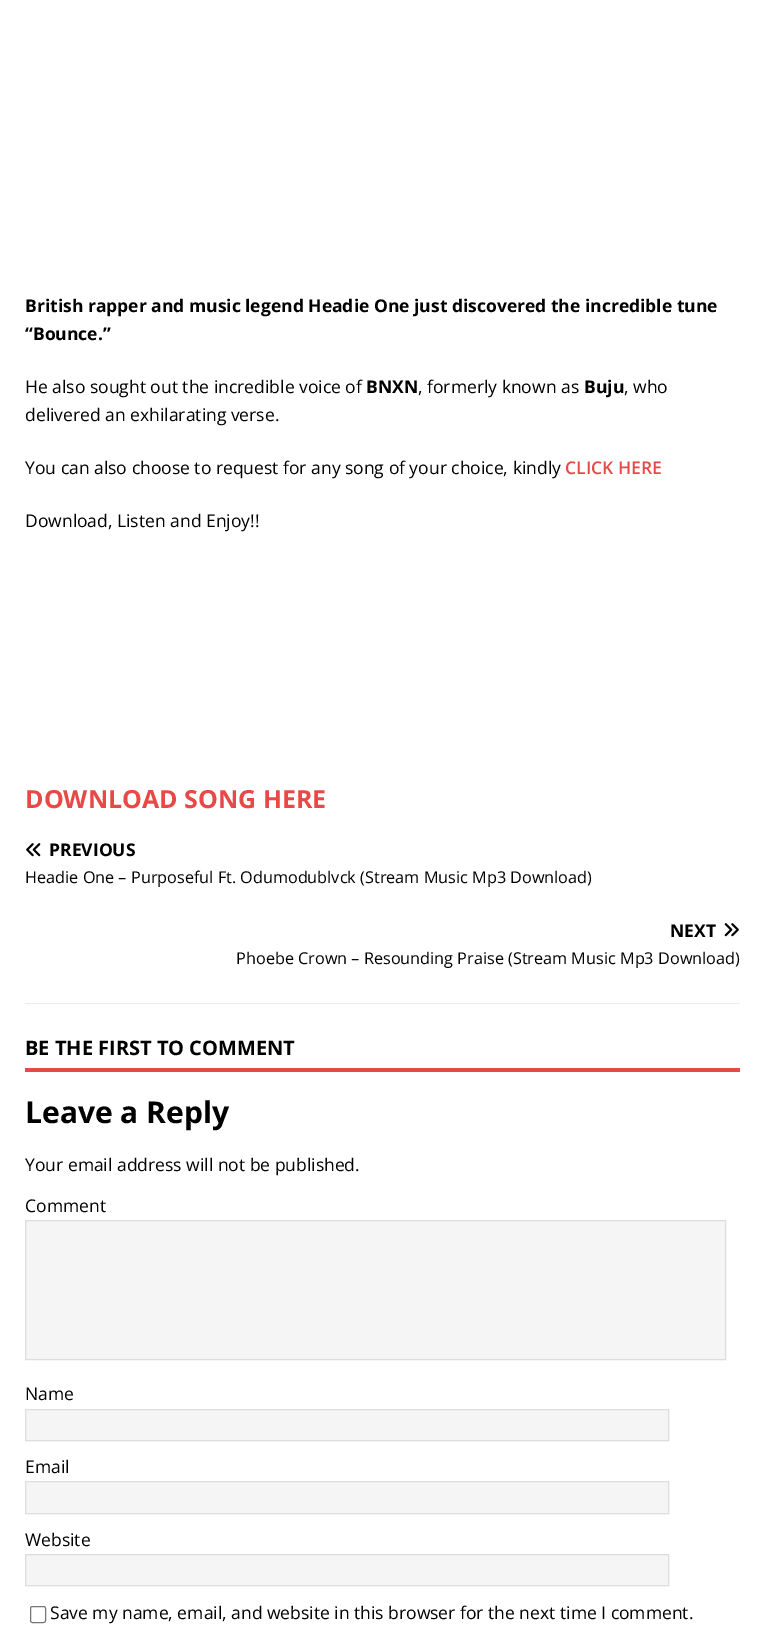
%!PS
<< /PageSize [764 1636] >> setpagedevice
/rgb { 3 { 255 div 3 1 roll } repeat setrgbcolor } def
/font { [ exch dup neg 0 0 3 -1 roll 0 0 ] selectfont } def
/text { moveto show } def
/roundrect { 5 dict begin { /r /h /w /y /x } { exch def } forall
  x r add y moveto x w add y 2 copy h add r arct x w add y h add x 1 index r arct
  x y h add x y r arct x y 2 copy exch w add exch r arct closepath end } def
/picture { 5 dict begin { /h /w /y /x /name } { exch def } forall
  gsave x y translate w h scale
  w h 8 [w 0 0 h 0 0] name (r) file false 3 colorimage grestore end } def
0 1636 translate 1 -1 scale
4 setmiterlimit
255 255 255 rgb
0 0 764 1636 rectfill
235 235 235 rgb
25 1003 715 1 rectfill
(img_01.rgb) 26 843 15 14 picture
(img_02.rgb) 724 923 15 14 picture
230 73 70 rgb
25 1068 715 4 rectfill
245 245 245 rgb
25.5 1220.5 moveto 700 0 rlineto 0 139 rlineto -700 0 rlineto closepath gsave fill grestore
221 221 221 rgb
stroke
245 245 245 rgb
25.5 1409.5 moveto 643 0 rlineto 0 31 rlineto -643 0 rlineto closepath gsave fill grestore
221 221 221 rgb
stroke
245 245 245 rgb
25.5 1481.5 moveto 643 0 rlineto 0 32 rlineto -643 0 rlineto closepath gsave fill grestore
221 221 221 rgb
stroke
245 245 245 rgb
25.5 1554.5 moveto 643 0 rlineto 0 31 rlineto -643 0 rlineto closepath gsave fill grestore
221 221 221 rgb
stroke
118 118 118 rgb
30.5 1606.5 15 16 2 roundrect stroke
/OpenSans-Bold 17.5 font
0 0 0 rgb
(British rapper and music legend Headie One just discovered the incredible tune) 25 312 text
(“Bounce.”) 25 340 text
/OpenSans-Regular 17.5 font
(He also sought out the incredible voice of) 25 393 text
/OpenSans-Bold 17.5 font
(BNXN) 366 393 text
/OpenSans-Regular 17.5 font
(, formerly known as) 418 393 text
/OpenSans-Bold 17.5 font
(Buju) 584 393 text
/OpenSans-Regular 17.5 font
(, who) 624 393 text
(delivered an exhilarating verse.) 25 421 text
(You can also choose to request for any song of your choice, kindly) 25 474 text
/OpenSans-SemiBold 17.5 font
230 73 70 rgb
(CLICK HERE) 565 474 text
/OpenSans-Regular 17.5 font
0 0 0 rgb
(Download, Listen and Enjoy!!) 25 527 text
/OpenSans-Bold 25 font
230 73 70 rgb
(DOWNLOAD SONG HERE) 25 808 text
/OpenSans-Bold 17.5 font
0 0 0 rgb
(PREVIOUS) 49 856 text
/OpenSans-Regular 16.25 font
(Headie One – Purposeful Ft. Odumodublvck \(Stream Music Mp3 Download\)) 25 883 text
/OpenSans-Bold 17.5 font
(NEXT) 670 937 text
/OpenSans-Regular 16.25 font
(Phoebe Crown – Resounding Praise \(Stream Music Mp3 Download\)) 236 964 text
/OpenSans-Bold 20 font
(BE THE FIRST TO COMMENT) 25 1055 text
/OpenSans-Bold 30 font
(Leave a Reply) 25 1123 text
/OpenSans-Regular 17.5 font
(Your email address will not be published.) 25 1171 text
(Comment) 25 1212 text
(Name) 25 1400 text
(Email) 25 1473 text
(Website) 25 1546 text
(Save my name, email, and website in this browser for the next time I comment.) 50 1619 text
showpage
